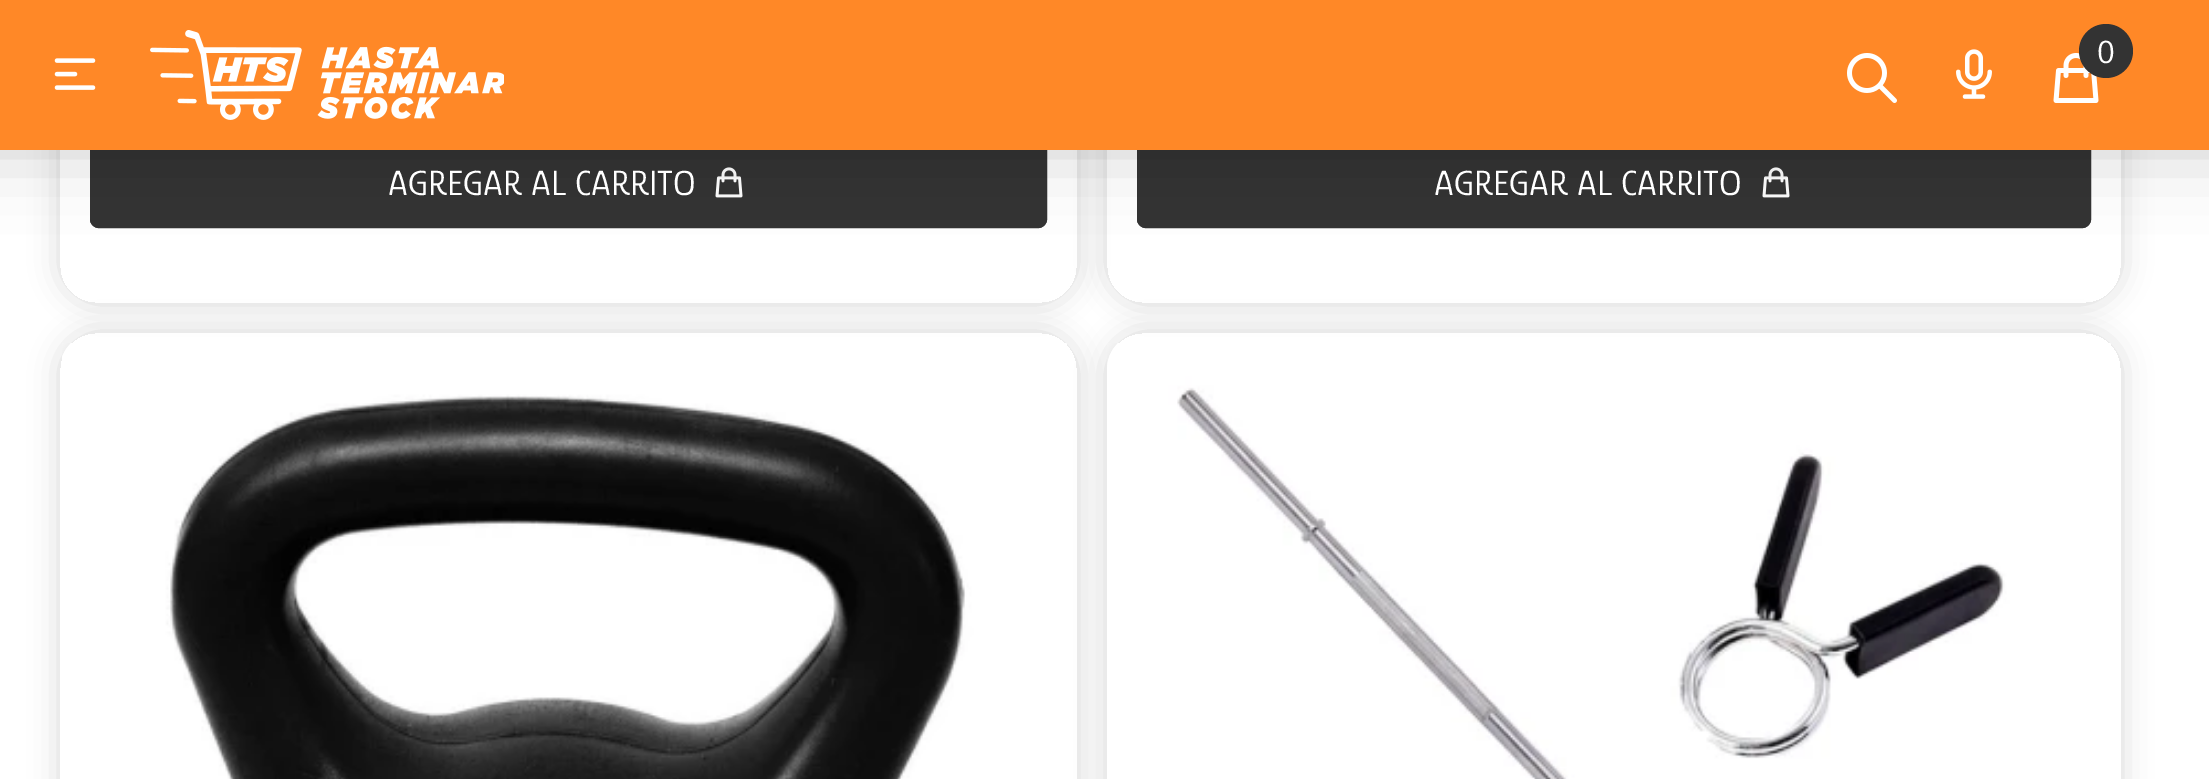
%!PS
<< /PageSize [2209 779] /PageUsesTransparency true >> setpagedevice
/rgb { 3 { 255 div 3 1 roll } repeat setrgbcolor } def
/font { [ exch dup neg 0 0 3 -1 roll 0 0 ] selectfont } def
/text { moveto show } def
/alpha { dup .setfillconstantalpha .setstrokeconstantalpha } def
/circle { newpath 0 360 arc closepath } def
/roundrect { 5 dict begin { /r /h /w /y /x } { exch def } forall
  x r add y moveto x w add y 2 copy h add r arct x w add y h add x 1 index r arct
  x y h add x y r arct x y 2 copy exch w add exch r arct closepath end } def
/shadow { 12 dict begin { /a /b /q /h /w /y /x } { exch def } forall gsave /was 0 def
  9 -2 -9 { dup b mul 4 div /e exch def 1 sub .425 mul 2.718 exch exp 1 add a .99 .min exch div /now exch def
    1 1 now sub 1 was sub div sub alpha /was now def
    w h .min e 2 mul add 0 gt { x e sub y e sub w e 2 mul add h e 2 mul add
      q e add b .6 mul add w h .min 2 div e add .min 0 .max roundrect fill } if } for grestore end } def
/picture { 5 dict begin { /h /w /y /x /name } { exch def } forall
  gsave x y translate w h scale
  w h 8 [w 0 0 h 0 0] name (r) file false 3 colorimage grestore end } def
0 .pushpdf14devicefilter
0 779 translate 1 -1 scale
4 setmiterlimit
255 255 255 rgb
0 0 2209 779 rectfill
gsave
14 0 moveto 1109 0 rlineto 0 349 rlineto -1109 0 rlineto closepath 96 -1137 moveto 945 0 rlineto 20 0 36 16 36 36 rcurveto 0 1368 rlineto 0 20 -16 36 -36 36 rcurveto -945 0 rlineto -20 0 -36 -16 -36 -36 rcurveto 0 -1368 rlineto 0 -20 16 -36 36 -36 rcurveto closepath eoclip newpath
0 0 0 rgb
60 -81 1017 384 36 15 0.15 shadow
grestore
51 51 51 rgb
90 138 957 90 9 roundrect fill
(img_06.rgb) 715 167 28 31 picture
3 setlinewidth
91.5 139.5 954 87 7.5 roundrect stroke
gsave
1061 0 moveto 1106 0 rlineto 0 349 rlineto -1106 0 rlineto closepath 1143 -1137 moveto 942 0 rlineto 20 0 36 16 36 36 rcurveto 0 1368 rlineto 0 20 -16 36 -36 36 rcurveto -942 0 rlineto -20 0 -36 -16 -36 -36 rcurveto 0 -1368 rlineto 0 -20 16 -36 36 -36 rcurveto closepath eoclip newpath
0 0 0 rgb
1107 -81 1014 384 36 15 0.15 shadow
grestore
1137 138 954 90 9 roundrect fill
(img_06.rgb) 1762 167 28 31 picture
1138.5 139.5 951 87 7.5 roundrect stroke
0 0 0 rgb
-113 0 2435 150 0 37.5 0.2 shadow
255 136 39 rgb
0 0 2209 150 rectfill
(img_01.rgb) 54 58 42 32 picture
(img_02.rgb) 150 30 354 90 picture
(img_03.rgb) 1847 53 50 50 picture
(img_04.rgb) 1956 49 36 50 picture
(img_05.rgb) 2053 53 46 50 picture
51 51 51 rgb
2106 51 27 circle fill
gsave
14 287 moveto 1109 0 rlineto 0 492 rlineto -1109 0 rlineto closepath 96 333 moveto 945 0 rlineto 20 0 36 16 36 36 rcurveto 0 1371 rlineto 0 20 -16 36 -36 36 rcurveto -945 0 rlineto -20 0 -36 -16 -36 -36 rcurveto 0 -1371 rlineto 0 -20 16 -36 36 -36 rcurveto closepath eoclip newpath
0 0 0 rgb
60 333 1017 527 36 15 0.15 shadow
grestore
(img_07.rgb) 62 343 1005 436 picture
gsave
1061 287 moveto 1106 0 rlineto 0 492 rlineto -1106 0 rlineto closepath 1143 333 moveto 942 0 rlineto 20 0 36 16 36 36 rcurveto 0 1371 rlineto 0 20 -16 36 -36 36 rcurveto -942 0 rlineto -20 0 -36 -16 -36 -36 rcurveto 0 -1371 rlineto 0 -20 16 -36 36 -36 rcurveto closepath eoclip newpath
0 0 0 rgb
1107 333 1014 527 36 15 0.15 shadow
grestore
(img_08.rgb) 1107 343 1004 436 picture
/Glory-Regular 33 font
255 255 255 rgb
(0) 2097 63 text
/Glory-Regular 36 font
(AGREGAR AL CARRITO) 388 195 text
(AGREGAR AL CARRITO) 1434 195 text
.poppdf14devicefilter showpage
